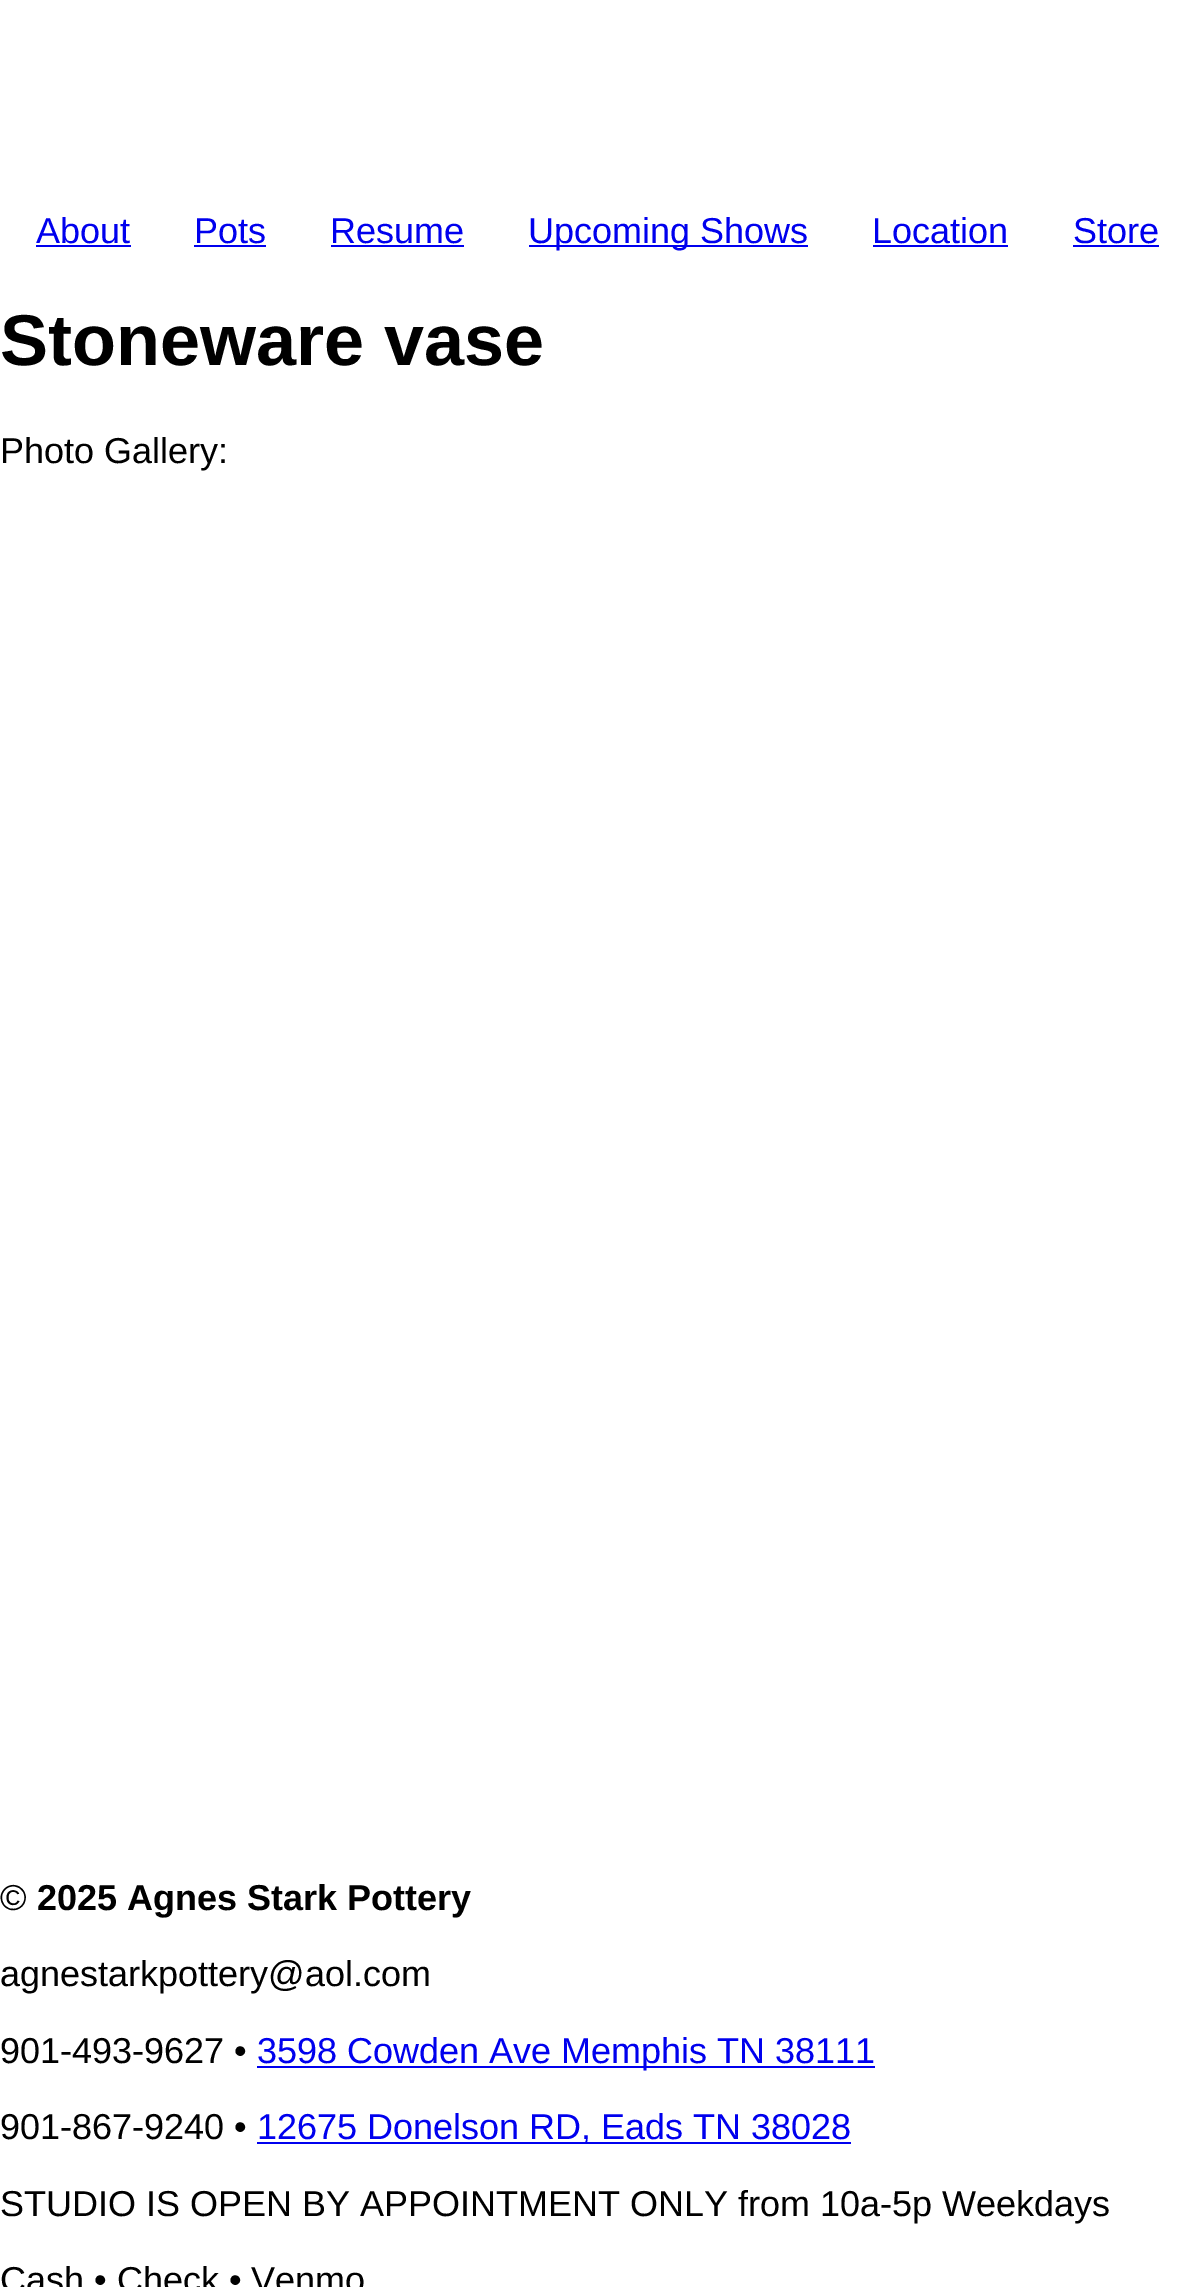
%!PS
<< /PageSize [1189 2287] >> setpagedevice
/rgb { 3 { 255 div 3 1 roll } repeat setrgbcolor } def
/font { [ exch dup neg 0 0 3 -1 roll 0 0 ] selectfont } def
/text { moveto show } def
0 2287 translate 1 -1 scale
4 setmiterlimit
255 255 255 rgb
0 0 1189 2287 rectfill
0 0 238 rgb
36 245 95 2 rectfill
194 245 72 2 rectfill
331 245 133 2 rectfill
529 245 279 2 rectfill
873 245 135 2 rectfill
1073 245 86 2 rectfill
257 2066 618 2 rectfill
257 2142 594 2 rectfill
/LiberationSans-Regular 36 font
(About) 36 243 text
(Pots) 194 243 text
(Resume) 330 243 text
(Upcoming Shows) 528 243 text
(Location) 872 243 text
(Store) 1073 243 text
/LiberationSans-Bold 72 font
0 0 0 rgb
(Stoneware vase) 0 365 text
/LiberationSans-Regular 36 font
(Photo Gallery:) 0 463 text
(©) 0 1910 text
/LiberationSans-Bold 36 font
(2025 Agnes Stark Pottery) 37 1910 text
/LiberationSans-Regular 36 font
(agnestarkpottery@aol.com) 0 1986 text
(901-493-9627 •) 0 2063 text
0 0 238 rgb
(3598 Cowden Ave Memphis TN 38111) 257 2063 text
0 0 0 rgb
(901-867-9240 •) 0 2139 text
0 0 238 rgb
(12675 Donelson RD, Eads TN 38028) 257 2139 text
0 0 0 rgb
(STUDIO IS OPEN BY APPOINTMENT ONLY from 10a-5p Weekdays) 0 2216 text
(Cash • Check • Venmo) 0 2292 text
showpage
